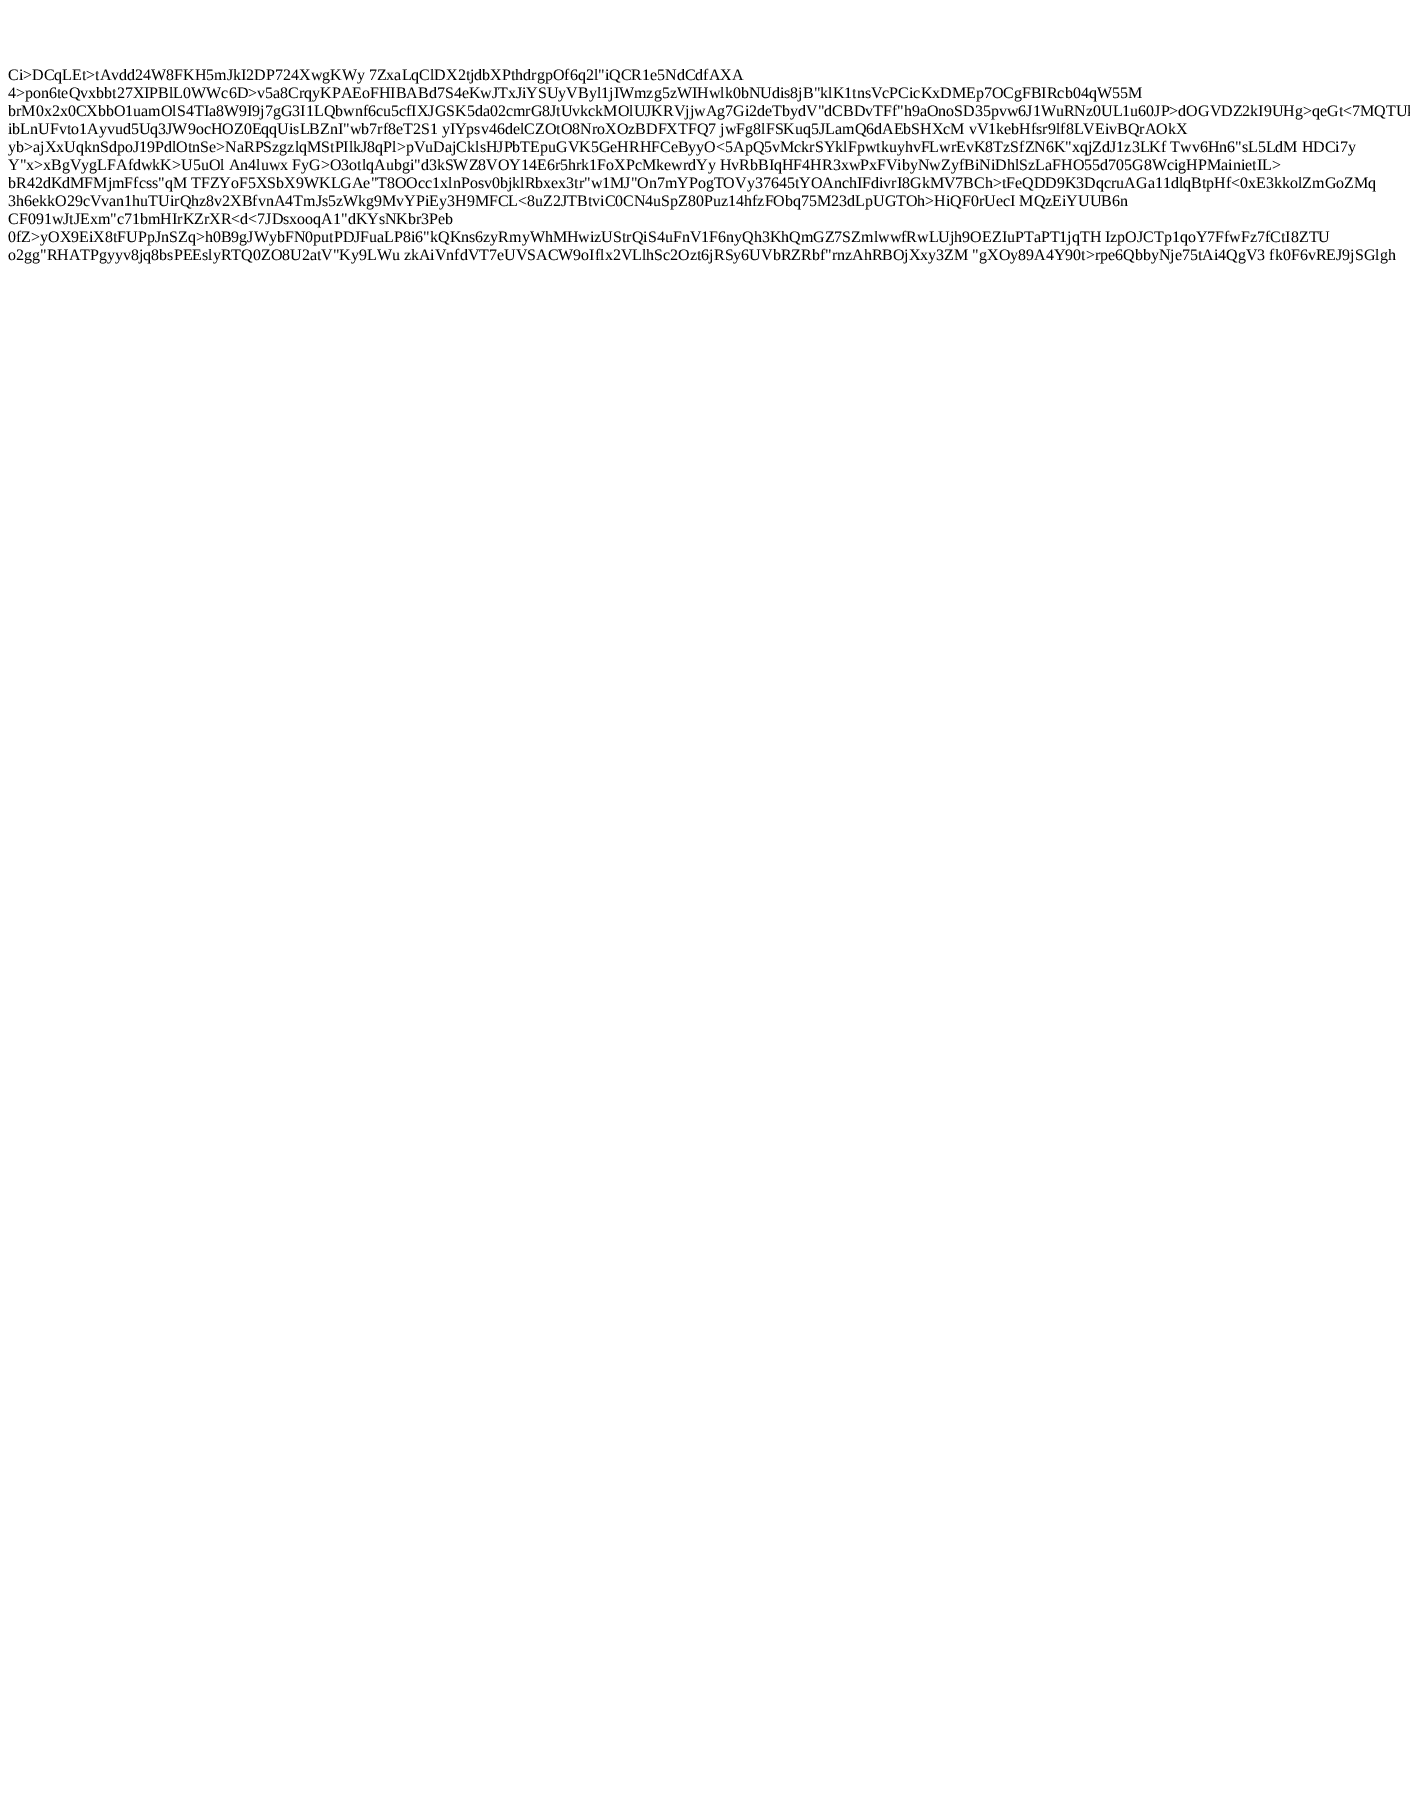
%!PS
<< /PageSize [1410 1806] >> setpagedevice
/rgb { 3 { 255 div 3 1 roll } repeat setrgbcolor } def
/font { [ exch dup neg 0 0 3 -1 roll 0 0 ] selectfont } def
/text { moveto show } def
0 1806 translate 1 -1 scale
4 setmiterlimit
255 255 255 rgb
0 0 1410 1806 rectfill
/LiberationSerif-Regular 16 font
0 0 0 rgb
(Ci>DCqLEt>tAvdd24W8FKH5mJkI2DP724XwgKWy 7ZxaLqClDX2tjdbXPthdrgpOf6q2l"iQCR1e5NdCdfAXA) 8 80 text
(4>pon6teQvxbbt27XIPBlL0WWc6D>v5a8CrqyKPAEoFHIBABd7S4eKwJTxJiYSUyVByl1jIWmzg5zWIHwlk0bNUdis8jB"klK1tnsVcPCicKxDMEp7OCgFBIRcb04qW55M) 8 98 text
(brM0x2x0CXbbO1uamOlS4TIa8W9I9j7gG3I1LQbwnf6cu5cfIXJGSK5da02cmrG8JtUvkckMOlUJKRVjjwAg7Gi2deTbydV"dCBDvTFf"h9aOnoSD35pvw6J1WuRNz0UL1u60JP>dOGVDZ2kI9UHg>qeGt<7MQTUk) 8 116 text
(ibLnUFvto1Ayvud5Uq3JW9ocHOZ0EqqUisLBZnI"wb7rf8eT2S1 yIYpsv46delCZOtO8NroXOzBDFXTFQ7 jwFg8lFSKuq5JLamQ6dAEbSHXcM vV1kebHfsr9lf8LVEivBQrAOkX) 8 134 text
(yb>ajXxUqknSdpoJ19PdlOtnSe>NaRPSzgzlqMStPIlkJ8qPl>pVuDajCklsHJPbTEpuGVK5GeHRHFCeByyO<5ApQ5vMckrSYklFpwtkuyhvFLwrEvK8TzSfZN6K"xqjZdJ1z3LKf Twv6Hn6"sL5LdM HDCi7y) 8 152 text
(Y"x>xBgVygLFAfdwkK>U5uOl An4luwx FyG>O3otlqAubgi"d3kSWZ8VOY14E6r5hrk1FoXPcMkewrdYy HvRbBIqHF4HR3xwPxFVibyNwZyfBiNiDhlSzLaFHO55d705G8WcigHPMainietIL>) 8 170 text
(bR42dKdMFMjmFfcss"qM TFZYoF5XSbX9WKLGAe"T8OOcc1xlnPosv0bjklRbxex3tr"w1MJ"On7mYPogTOVy37645tYOAnchIFdivrI8GkMV7BCh>tFeQDD9K3DqcruAGa11dlqBtpHf<0xE3kkolZmGoZMq) 8 188 text
(3h6ekkO29cVvan1huTUirQhz8v2XBfvnA4TmJs5zWkg9MvYPiEy3H9MFCL<8uZ2JTBtviC0CN4uSpZ80Puz14hfzFObq75M23dLpUGTOh>HiQF0rUecI MQzEiYUUB6n) 8 206 text
(CF091wJtJExm"c71bmHIrKZrXR<d<7JDsxooqA1"dKYsNKbr3Peb) 8 224 text
(0fZ>yOX9EiX8tFUPpJnSZq>h0B9gJWybFN0putPDJFuaLP8i6"kQKns6zyRmyWhMHwizUStrQiS4uFnV1F6nyQh3KhQmGZ7SZmlwwfRwLUjh9OEZIuPTaPT1jqTH IzpOJCTp1qoY7FfwFz7fCtI8ZTU) 8 242 text
(o2gg"RHATPgyyv8jq8bsPEEslyRTQ0ZO8U2atV"Ky9LWu zkAiVnfdVT7eUVSACW9oIflx2VLlhSc2Ozt6jRSy6UVbRZRbf"rnzAhRBOjXxy3ZM "gXOy89A4Y90t>rpe6QbbyNje75tAi4QgV3 fk0F6vREJ9jSGlgh) 8 260 text
showpage
